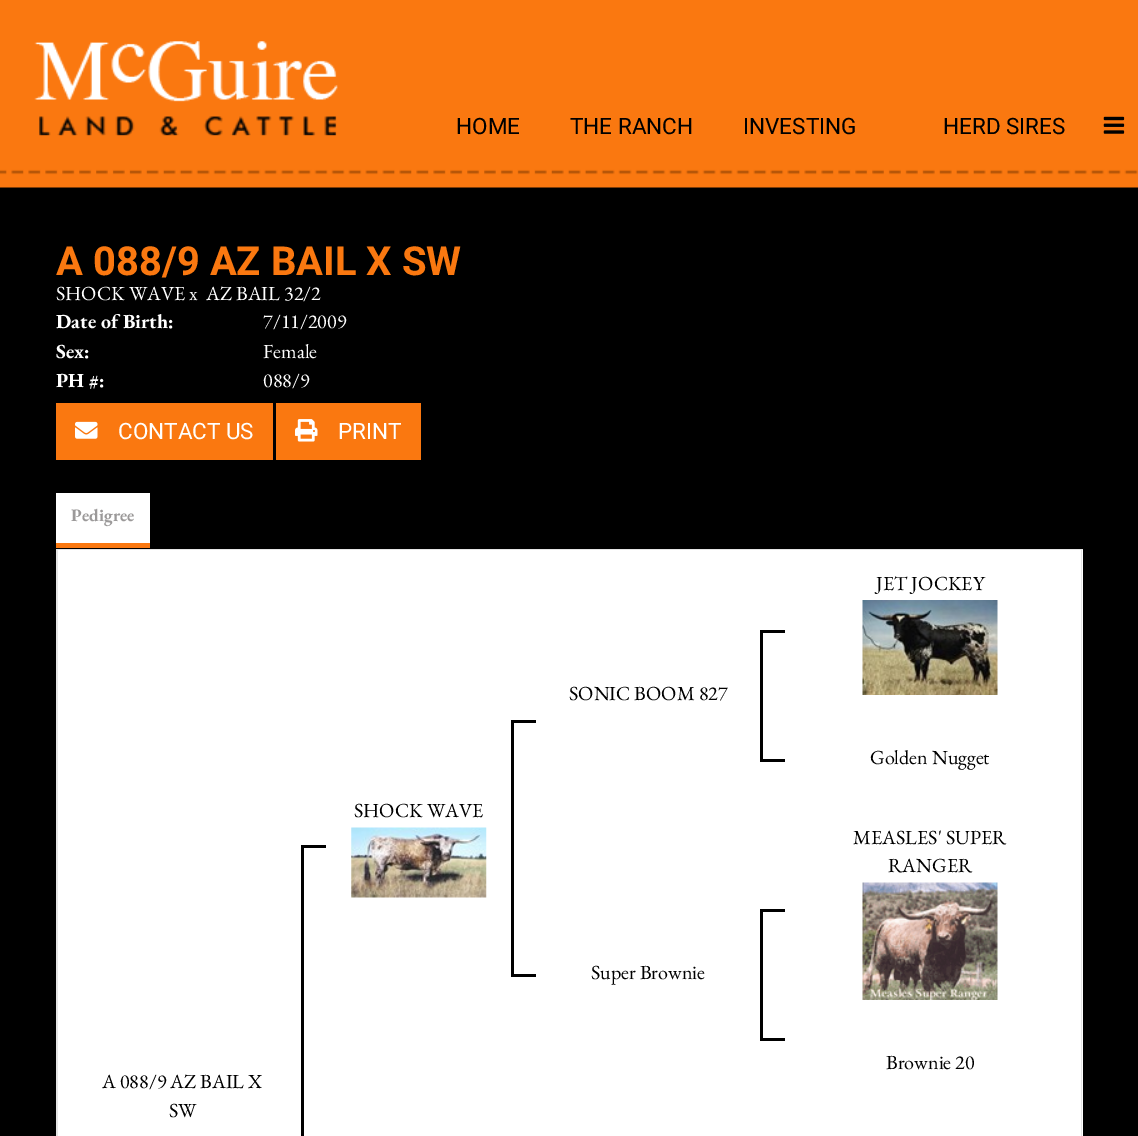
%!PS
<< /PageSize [1138 1136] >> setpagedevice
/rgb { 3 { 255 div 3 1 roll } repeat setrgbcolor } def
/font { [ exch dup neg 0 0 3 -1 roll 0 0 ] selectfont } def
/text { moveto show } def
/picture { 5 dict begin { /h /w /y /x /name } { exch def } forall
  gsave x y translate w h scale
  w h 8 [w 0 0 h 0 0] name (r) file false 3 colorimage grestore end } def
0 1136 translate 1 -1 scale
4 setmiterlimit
0 0 0 rgb
0 0 1138 1136 rectfill
(img_01.rgb) 0 0 1138 188 picture
(img_02.rgb) 34 41 304 95 picture
(img_03.rgb) 1103 116 22 18 picture
250 120 16 rgb
56 403 217 57 rectfill
(img_04.rgb) 75 421 23 18 picture
276 403 145 57 rectfill
(img_05.rgb) 295 419 23 23 picture
229 229 229 rgb
56 549 1027 1 rectfill
250 120 16 rgb
56 543 94 5 rectfill
255 255 255 rgb
56 493 94 50 rectfill
58 550 1025 586 rectfill
229 229 229 rgb
1082 550 moveto -1 0 rlineto 0 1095 rlineto 1 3 rlineto closepath fill
58 550 moveto 0 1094 rlineto -1 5 rlineto -1 -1 rlineto 0 -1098 rlineto closepath fill
(img_06.rgb) 862 600 136 95 picture
0 0 0 rgb
760 630 25 3 rectfill
760 759 25 3 rectfill
760 630 3 131 rectfill
(img_07.rgb) 351 827 136 71 picture
511 720 25 3 rectfill
511 974 25 3 rectfill
511 720 3 256 rectfill
301 845 25 3 rectfill
301 845 3 291 rectfill
(img_08.rgb) 862 882 136 118 picture
760 909 25 3 rectfill
760 1038 25 3 rectfill
760 909 3 131 rectfill
/Roboto-Regular 22.5 font
(HOME) 456 134 text
(THE RANCH) 570 134 text
(INVESTING) 743 134 text
(HERD SIRES) 943 134 text
/Roboto-Bold 40 font
250 120 16 rgb
(A 088/9 AZ BAIL X SW) 56 275 text
/EBGaramond-Regular 20 font
255 255 255 rgb
(SHOCK WAVE x) 56 300 text
(AZ BAIL 32/2) 206 300 text
/EBGaramond-Bold 20 font
(Date of Birth:) 56 328 text
/EBGaramond-Regular 20 font
(7/11/2009) 263 328 text
/EBGaramond-Bold 20 font
(Sex:) 56 358 text
/EBGaramond-Regular 20 font
(Female) 263 358 text
/EBGaramond-Bold 20 font
(PH #:) 56 387 text
/EBGaramond-Regular 20 font
(088/9) 263 387 text
/Roboto-Regular 22.5 font
(CONTACT US) 118 439 text
(PRINT) 338 439 text
/EBGaramond-Bold 17.5 font
155 153 153 rgb
(Pedigree) 71 521 text
/EBGaramond-Regular 20 font
0 0 0 rgb
(JET JOCKEY) 876 590 text
(SONIC BOOM 827) 569 700 text
(SHOCK WAVE) 354 817 text
(A 088/9 AZ BAIL X) 102 1088 text
(SW) 169 1117 text
(Golden Nugget) 870 764 text
(MEASLES' SUPER) 853 844 text
(RANGER) 888 872 text
(Super Brownie) 591 979 text
(Brownie 20) 886 1069 text
showpage
